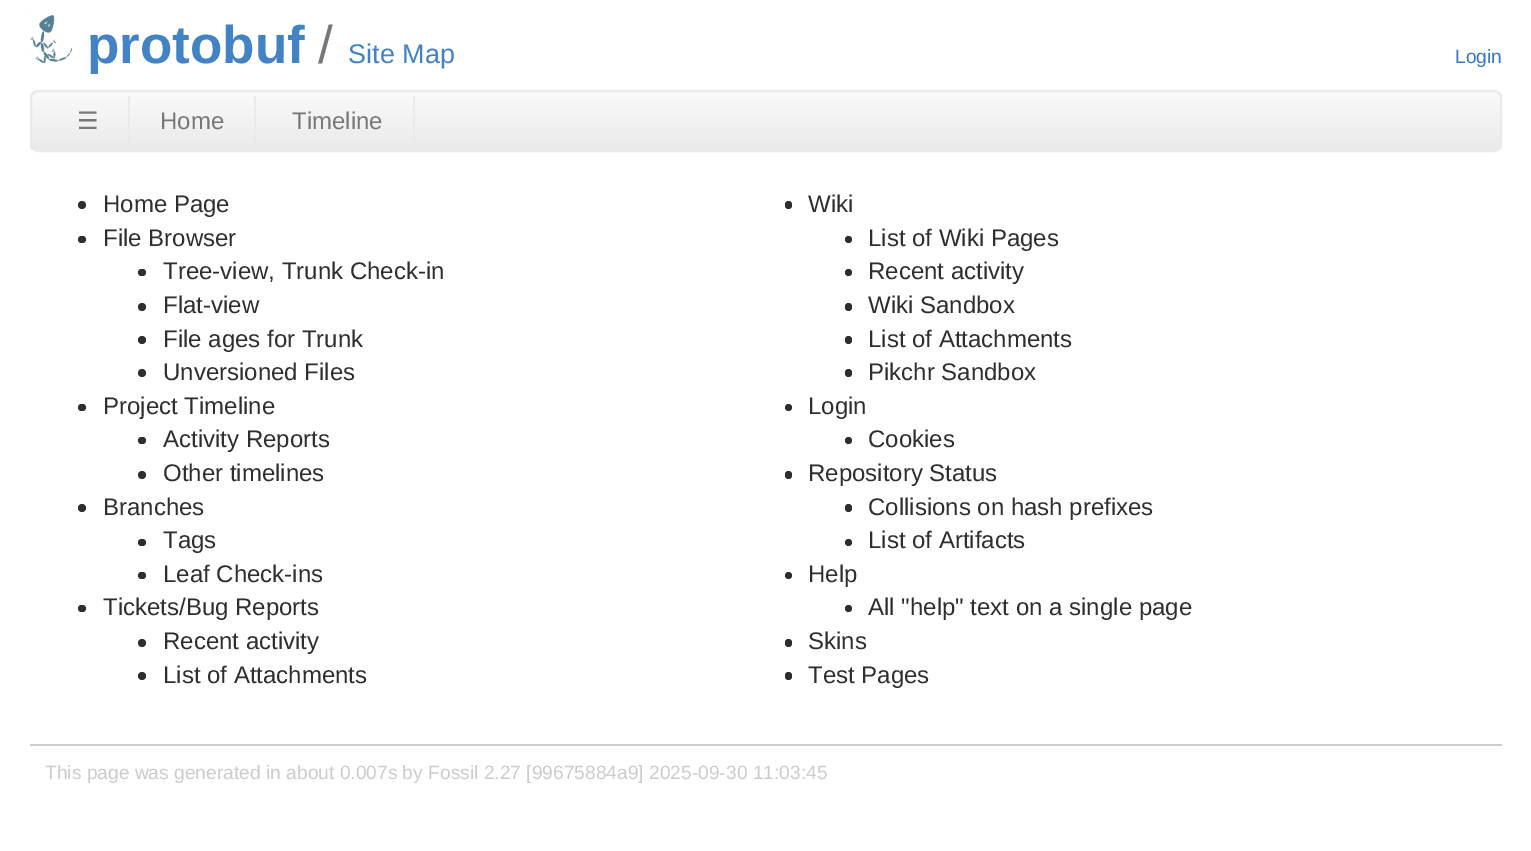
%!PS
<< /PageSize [1531 851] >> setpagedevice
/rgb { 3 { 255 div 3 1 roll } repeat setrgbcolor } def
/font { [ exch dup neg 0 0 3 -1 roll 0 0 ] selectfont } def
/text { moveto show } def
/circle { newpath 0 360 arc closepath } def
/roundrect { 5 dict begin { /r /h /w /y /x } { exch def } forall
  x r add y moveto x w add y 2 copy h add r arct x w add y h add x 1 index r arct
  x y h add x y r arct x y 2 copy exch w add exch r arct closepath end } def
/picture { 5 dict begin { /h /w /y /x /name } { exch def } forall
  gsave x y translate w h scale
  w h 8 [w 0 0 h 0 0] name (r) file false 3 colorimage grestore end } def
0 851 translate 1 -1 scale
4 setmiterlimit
255 255 255 rgb
0 0 1531 851 rectfill
(img_01.rgb) 30 15 42 48 picture
gsave
30 90 1472 62 8 roundrect clip newpath
gsave 30 92 moveto 1472 0 rlineto 0 58 rlineto -1472 0 rlineto closepath clip newpath
<< /ShadingType 2 /ColorSpace /DeviceRGB /Coords [766 91 766 150] /Extend [true true] /Function << /FunctionType 2 /Domain [0 1] /C0 [0.98 0.98 0.98] /C1 [0.918 0.918 0.918] /N 1 >> >> shfill grestore
grestore
234 234 234 rgb
2 setlinewidth
31 91 1470 60 7 roundrect stroke
128 96 2 50 rectfill
254 96 2 50 rectfill
413 96 2 50 rectfill
46 46 46 rgb
82 205 4 circle fill
785 201 7 8 3.5 roundrect fill
848.5 239.5 3.5 circle fill
848.5 272.5 3.5 circle fill
845 303 7 8 3.5 roundrect fill
845 336 7 8 3.5 roundrect fill
845 369 7 8 3.5 roundrect fill
78 236 8 7 3.5 roundrect fill
138 269 8 7 3.5 roundrect fill
142 307 4 circle fill
142 340 4 circle fill
142 373 4 circle fill
78 404 8 7 3.5 roundrect fill
138 437 8 7 3.5 roundrect fill
142 475 4 circle fill
788.5 407.5 3.5 circle fill
848.5 440.5 3.5 circle fill
82 508 4 circle fill
138 539 8 7 3.5 roundrect fill
138 572 8 7 3.5 roundrect fill
785 471 7 8 3.5 roundrect fill
845 504 7 8 3.5 roundrect fill
848.5 542.5 3.5 circle fill
78 605 8 7 3.5 roundrect fill
142 643 4 circle fill
142 676 4 circle fill
788.5 575.5 3.5 circle fill
848.5 608.5 3.5 circle fill
785 639 7 8 3.5 roundrect fill
785 672 7 8 3.5 roundrect fill
204 204 204 rgb
30 744 1472 2 rectfill
/LiberationSans-Bold 53 font
65 131 196 rgb
(protobuf) 87 63 text
/LiberationSans-Regular 53 font
119 119 119 rgb
(/) 318 63 text
/LiberationSans-Regular 27 font
65 131 196 rgb
(Site Map) 348 63 text
/LiberationSans-Regular 19.2 font
55 121 191 rgb
(Login) 1455 63 text
/DejaVuSans-Regular 24 font
119 119 119 rgb
(☰) 77 129 text
/LiberationSans-Regular 24 font
(Home) 160 129 text
(Timeline) 292 129 text
46 46 46 rgb
(Home Page) 103 212 text
(Wiki) 808 212 text
(List of Wiki Pages) 868 246 text
(Recent activity) 868 279 text
(Wiki Sandbox) 868 313 text
(List of Attachments) 868 347 text
(Pikchr Sandbox) 868 380 text
(File Browser) 103 246 text
(Tree-view, Trunk Check-in) 163 279 text
(Flat-view) 163 313 text
(File ages for Trunk) 163 347 text
(Unversioned Files) 163 380 text
(Project Timeline) 103 414 text
(Activity Reports) 163 447 text
(Other timelines) 163 481 text
(Login) 808 414 text
(Cookies) 868 447 text
(Branches) 103 515 text
(Tags) 163 548 text
(Leaf Check-ins) 163 582 text
(Repository Status) 808 481 text
(Collisions on hash prefixes) 868 515 text
(List of Artifacts) 868 548 text
(Tickets/Bug Reports) 103 615 text
(Recent activity) 163 649 text
(List of Attachments) 163 683 text
(Help) 808 582 text
(All "help" text on a single page) 868 615 text
(Skins) 808 649 text
(Test Pages) 808 683 text
/LiberationSans-Regular 19.2 font
204 204 204 rgb
(This page was generated in about 0.007s by Fossil 2.27 [99675884a9] 2025-09-30 11:03:45) 45 779 text
showpage
